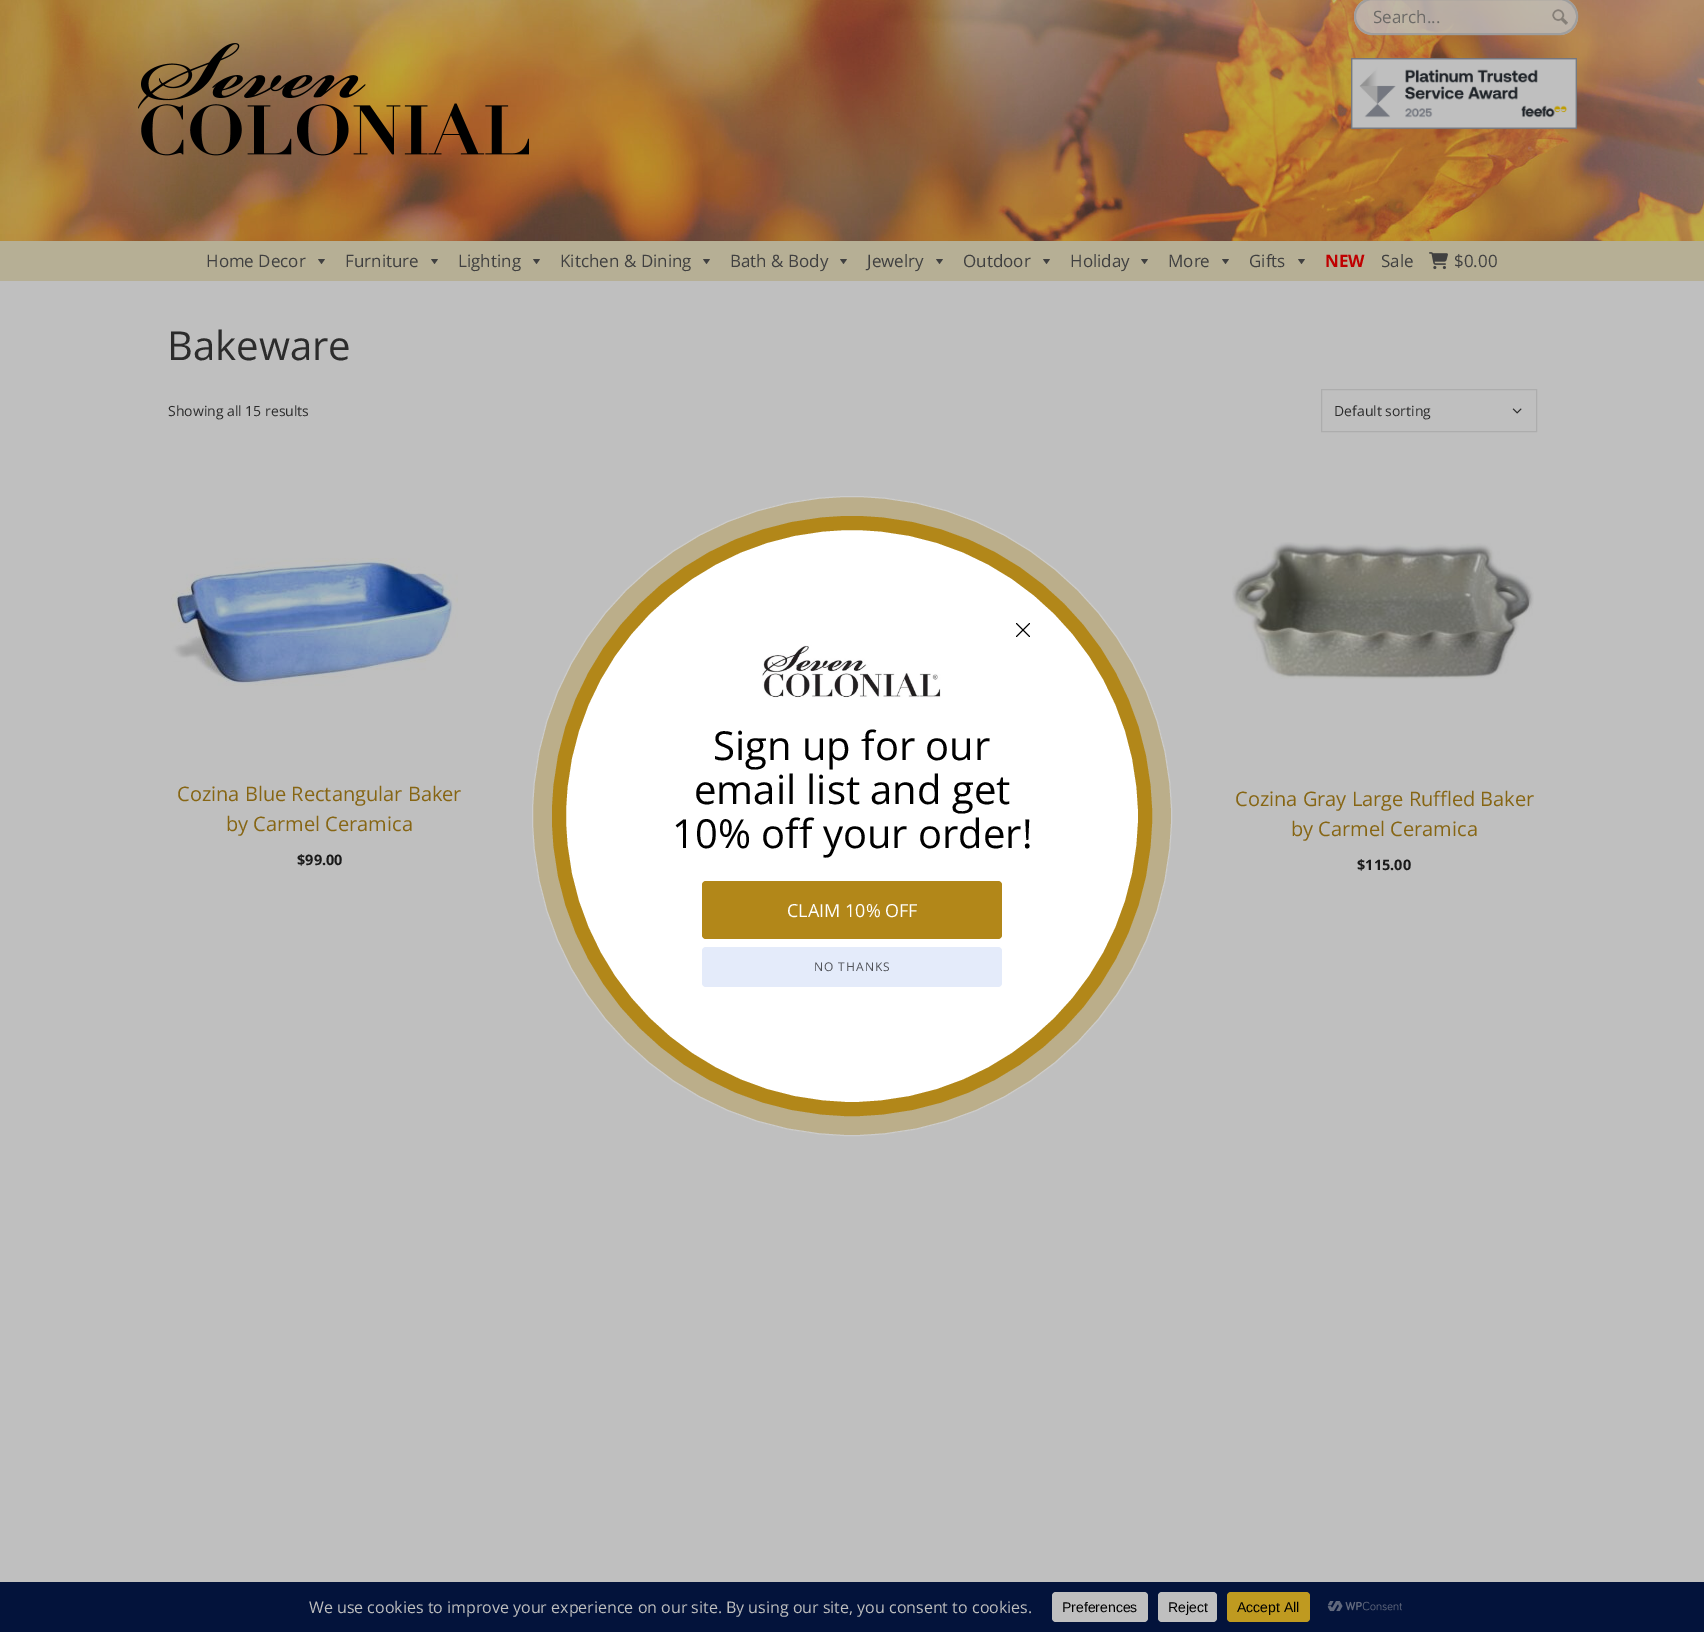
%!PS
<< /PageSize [1704 1632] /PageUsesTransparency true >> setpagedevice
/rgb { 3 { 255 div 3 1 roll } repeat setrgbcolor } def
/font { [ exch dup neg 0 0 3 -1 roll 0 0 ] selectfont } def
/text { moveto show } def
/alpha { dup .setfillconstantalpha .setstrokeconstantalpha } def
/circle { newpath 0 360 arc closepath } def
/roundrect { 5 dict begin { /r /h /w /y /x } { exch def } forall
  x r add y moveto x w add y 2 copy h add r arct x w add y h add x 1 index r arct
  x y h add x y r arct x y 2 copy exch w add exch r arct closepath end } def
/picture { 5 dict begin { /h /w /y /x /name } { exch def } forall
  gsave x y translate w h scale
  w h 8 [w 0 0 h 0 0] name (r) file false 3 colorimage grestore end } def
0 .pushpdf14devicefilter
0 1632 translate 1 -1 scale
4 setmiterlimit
191 191 191 rgb
0 0 1704 1632 rectfill
(img_01.rgb) 0 0 1704 241 picture
0.8 alpha
1354 -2 224 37 18.5 roundrect fill
151 153 155 rgb
2 setlinewidth
1355 -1 222 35 17.5 roundrect stroke
1 alpha
(img_02.rgb) 1552 9 16 16 picture
(img_03.rgb) 1351 58 226 71 picture
(img_04.rgb) 138 43 391 113 picture
182 175 149 rgb
0 241 1704 40 rectfill
64 64 64 rgb
325 259 moveto -3.5 5 rlineto -3.5 -5 rlineto closepath fill
438 259 moveto -3.5 5 rlineto -3.5 -5 rlineto closepath fill
540 259 moveto -3.5 5 rlineto -3.5 -5 rlineto closepath fill
710 259 moveto -3.5 5 rlineto -3.5 -5 rlineto closepath fill
847 259 moveto -3.5 5 rlineto -3.5 -5 rlineto closepath fill
943 259 moveto -3.5 5 rlineto -3.5 -5 rlineto closepath fill
1050 259 moveto -3.5 5 rlineto -3.5 -5 rlineto closepath fill
1148 259 moveto -3.5 5 rlineto -3.5 -5 rlineto closepath fill
1229 259 moveto -3.5 5 rlineto -3.5 -5 rlineto closepath fill
1305 259 moveto -3.5 5 rlineto -3.5 -5 rlineto closepath fill
(img_05.rgb) 1429 252 19 18 picture
173 173 173 rgb
1 setlinewidth
1321.5 389.5 215 42 rectstroke
(img_06.rgb) 1512 408 10 6 picture
(img_07.rgb) 170 558 288 128 picture
(img_08.rgb) 1232 542 302 137 picture
187 174 138 rgb
852 816 319.5 circle gsave fill grestore
204 204 204 rgb
stroke
255 255 255 rgb
852 816 293 circle gsave fill grestore
178 135 25 rgb
14 setlinewidth
stroke
0 0 0 rgb
0.8 setlinewidth
1 setlinecap
1016.5 623.5 moveto 13 13 rlineto 1029.5 623.5 moveto -13 13 rlineto stroke
(img_09.rgb) 762 645 179 53 picture
178 135 25 rgb
702 881 300 58 4 roundrect fill
228 235 250 rgb
702 947 300 40 4 roundrect fill
3 19 59 rgb
0 1582 1704 50 rectfill
191 191 191 rgb
1052 1592 96 30 4 roundrect fill
1158 1592 59 30 4 roundrect fill
191 154 32 rgb
1227 1592 83 30 4 roundrect fill
(img_10.rgb) 1327 1601 75 11 picture
/OpenSans-Regular 17 font
108 106 103 rgb
(Search...) 1373 23 text
64 64 64 rgb
(Home Decor) 206 267 text
(Furniture) 345 267 text
(Lighting) 458 267 text
(Kitchen & Dining) 560 267 text
(Bath & Body) 730 267 text
(Jewelry) 867 267 text
(Outdoor) 963 267 text
(Holiday) 1070 267 text
(More) 1168 267 text
(Gifts) 1249 267 text
/OpenSans-Bold 17 font
191 0 0 rgb
(NEW) 1325 267 text
/OpenSans-Regular 17 font
64 64 64 rgb
(Sale) 1381 267 text
($0.00) 1454 267 text
/OpenSans-Regular 40 font
44 44 44 rgb
(Bakeware) 167 360 text
/OpenSans-Regular 14 font
(Showing all 15 results) 168 416 text
(Default sorting) 1334 416 text
/OpenSans-Regular 20 font
134 101 19 rgb
(Cozina Blue Rectangular Baker) 177 801 text
(by Carmel Ceramica) 226 831 text
/OpenSans-Bold 14.5 font
26 26 26 rgb
($99.00) 297 865 text
/OpenSans-Regular 20 font
134 101 19 rgb
(Cozina Gray Large Ruffled Baker) 1235 806 text
(by Carmel Ceramica) 1291 836 text
/OpenSans-Bold 14.5 font
26 26 26 rgb
($115.00) 1357 870 text
/OpenSans-Regular 40 font
0 0 0 rgb
(Sign up for our) 713 760 text
(email list and get) 694 804 text
(10% off your order!) 672 848 text
/OpenSans-Regular 18 font
255 255 255 rgb
(CLAIM 10% OFF) 787 917 text
/OpenSans-Regular 12 font
80 82 88 rgb
814 971 moveto 1 0 (NO THANKS) ashow
/OpenSans-Regular 16 font
191 191 191 rgb
(We use cookies to improve your experience on our site. By using our site, you consent to cookies.) 309 1613 text
/LiberationSans-Regular 14 font
0 0 0 rgb
(Preferences) 1062 1612 text
(Reject) 1168 1612 text
(Accept All) 1237 1612 text
.poppdf14devicefilter showpage
